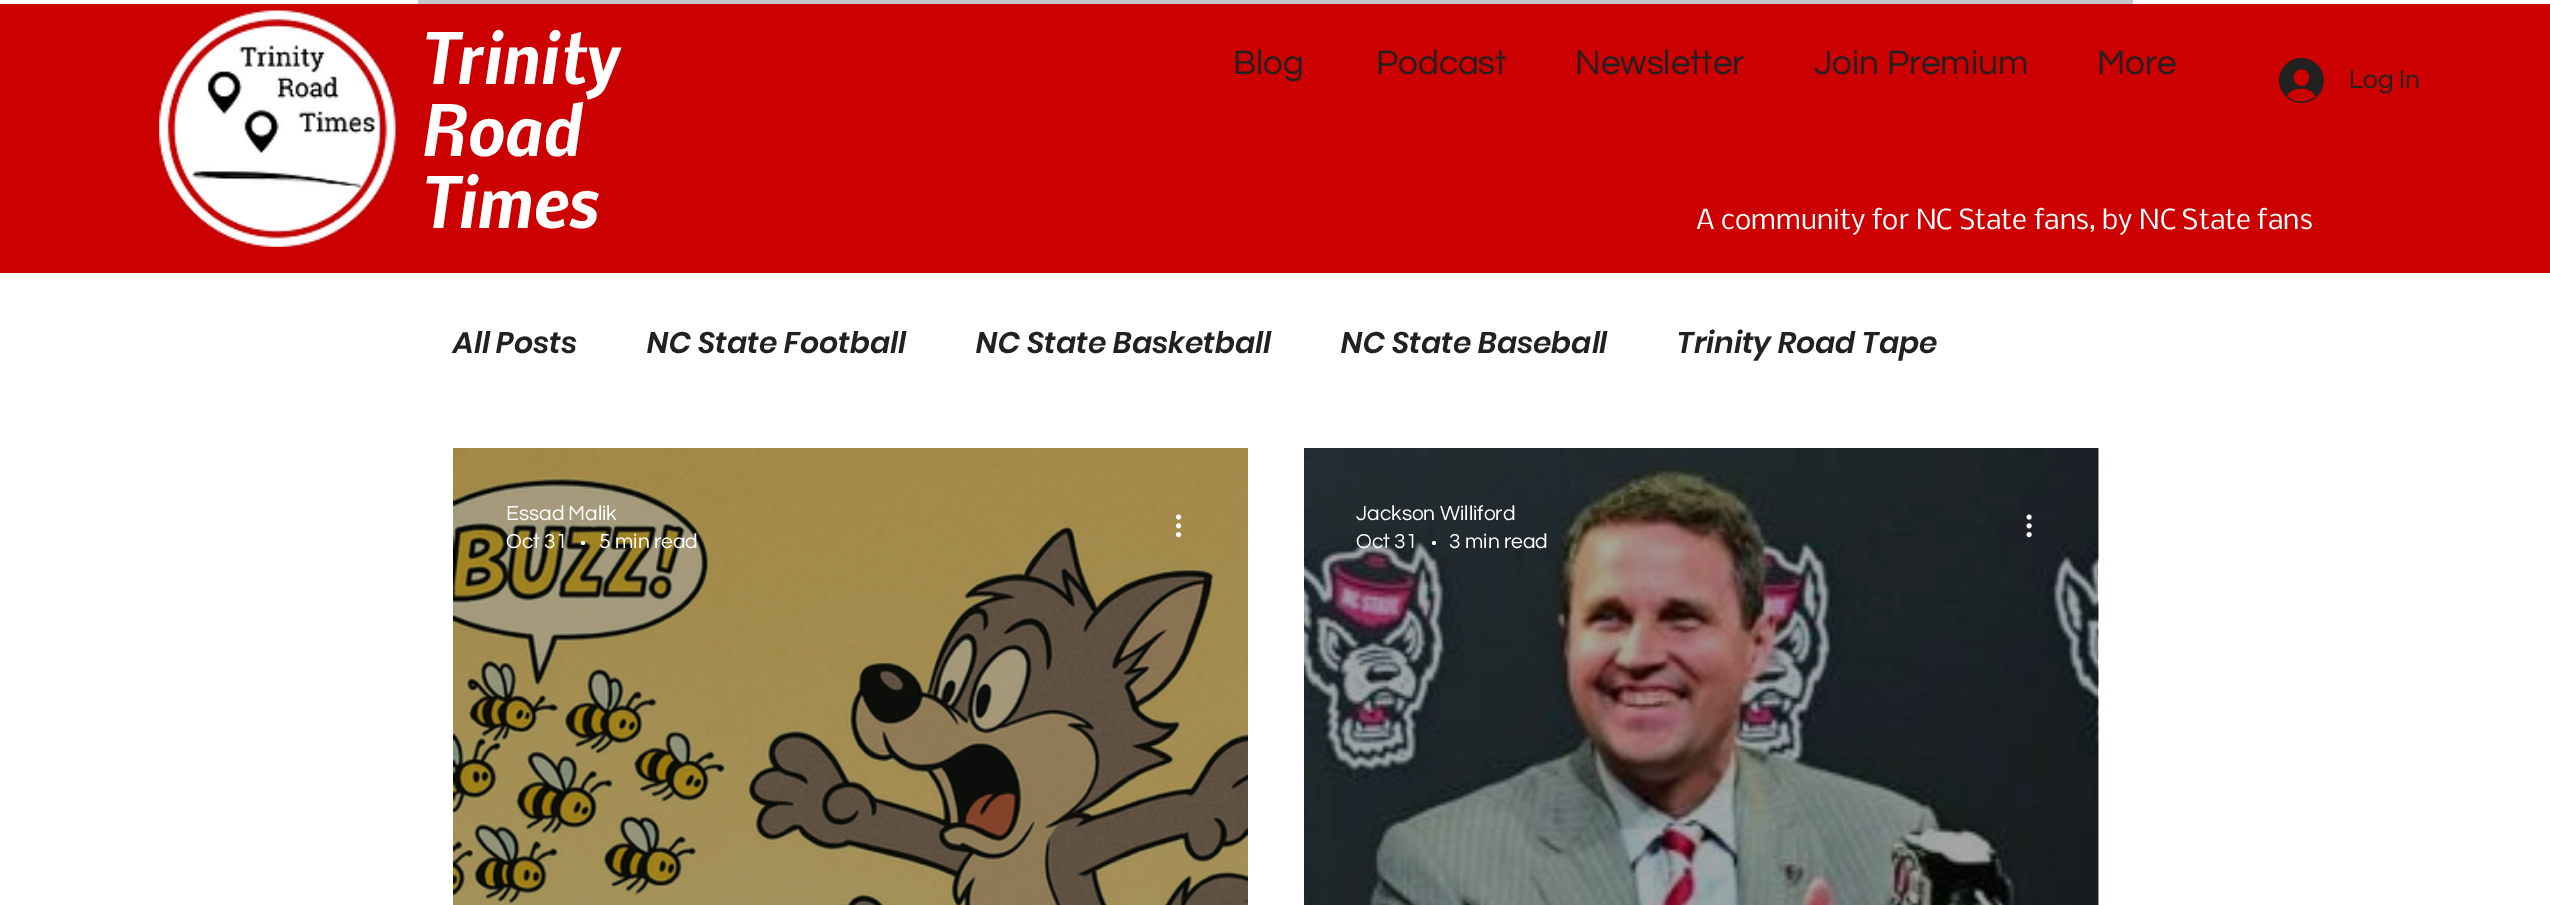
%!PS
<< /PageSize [2550 905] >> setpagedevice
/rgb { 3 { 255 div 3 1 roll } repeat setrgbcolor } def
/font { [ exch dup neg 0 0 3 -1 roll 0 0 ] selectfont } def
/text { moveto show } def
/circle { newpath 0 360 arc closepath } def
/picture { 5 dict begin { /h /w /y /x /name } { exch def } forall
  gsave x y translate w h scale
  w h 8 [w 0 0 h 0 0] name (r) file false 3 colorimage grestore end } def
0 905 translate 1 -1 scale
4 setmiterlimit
255 255 255 rgb
0 0 2550 905 rectfill
200 200 200 rgb
418 0 1715 4 rectfill
204 0 0 rgb
0 4 2550 269 rectfill
(img_01.rgb) 159 10 237 237 picture
(img_02.rgb) 2279 58 45 45 picture
(img_03.rgb) 453 448 795 457 picture
255 255 255 rgb
583 543 2 circle fill
(img_04.rgb) 1176 514 6 24 picture
(img_06.rgb) 2097 448 1 457 picture
(img_05.rgb) 1304 448 795 457 picture
1434 543 2 circle fill
(img_07.rgb) 2026 514 6 24 picture
/Nobile-BoldItalic 66.5 font
(Trinity) 422 84 text
(Road) 422 156 text
(Times) 422 228 text
/Questrial-Regular 35 font
33 33 33 rgb
(Blog) 1233 74 text
(Podcast) 1376 74 text
(Newsletter) 1575 74 text
(Join Premium) 1814 74 text
(More) 2097 74 text
/Questrial-Regular 26.25 font
(Log In) 2349 88 text
/Nobile-Regular 26.25 font
255 255 255 rgb
(A community for NC State fans, by NC State fans) 1696 229 text
/Poppins-SemiBoldItalic 29.75 font
33 33 33 rgb
(All Posts) 453 353 text
(NC State Football) 647 353 text
(NC State Basketball) 976 353 text
(NC State Baseball) 1341 353 text
(Trinity Road Tape) 1677 353 text
/Questrial-Regular 21 font
255 255 255 rgb
(Essad Malik) 506 520 text
(Oct 31) 506 548 text
(5 min read) 599 548 text
(Jackson Williford) 1356 520 text
(Oct 31) 1356 548 text
(3 min read) 1449 548 text
showpage
